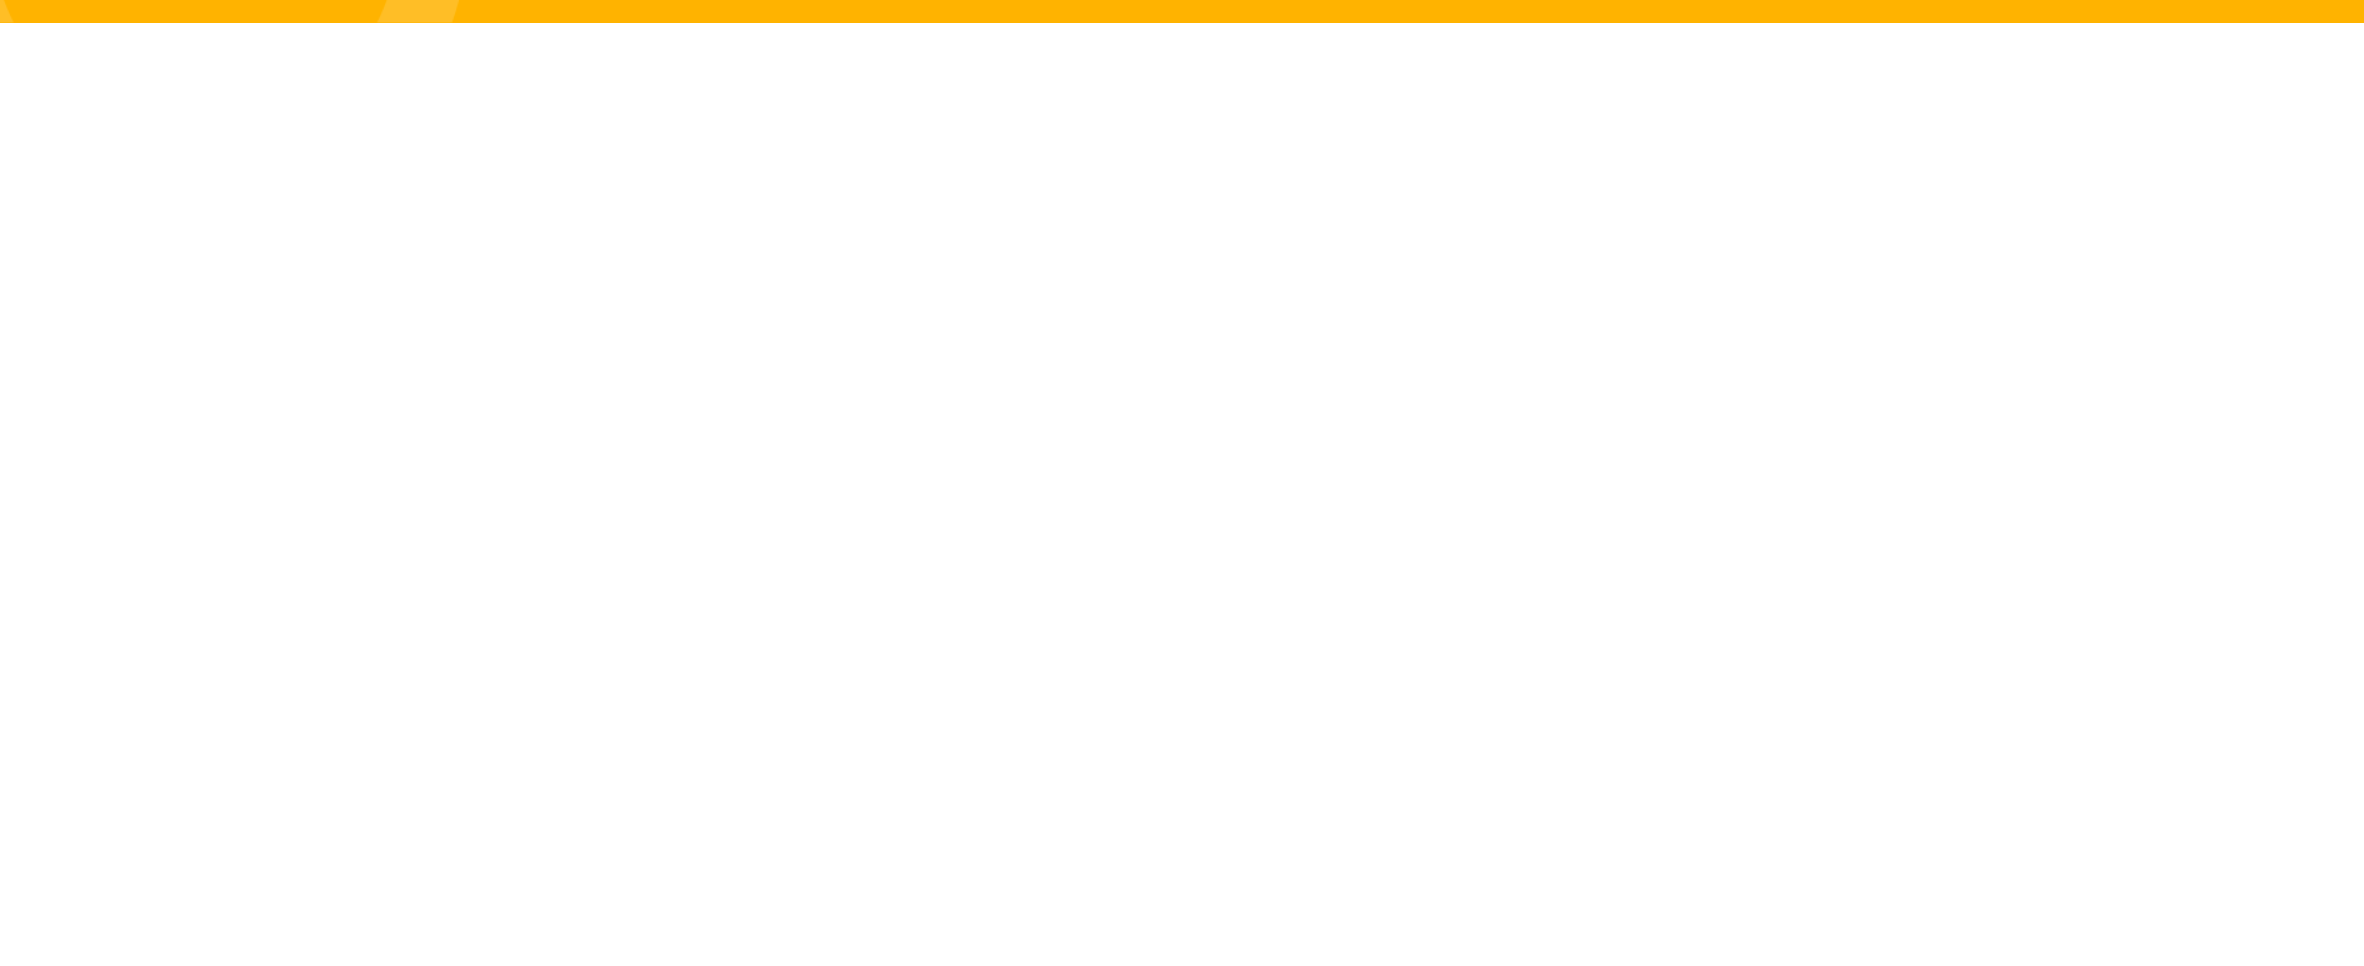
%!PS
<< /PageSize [2364 966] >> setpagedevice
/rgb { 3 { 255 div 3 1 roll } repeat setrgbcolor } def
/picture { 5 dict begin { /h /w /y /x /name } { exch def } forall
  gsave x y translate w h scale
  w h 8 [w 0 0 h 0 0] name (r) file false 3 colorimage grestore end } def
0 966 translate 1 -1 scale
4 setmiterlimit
255 255 255 rgb
0 0 2364 966 rectfill
255 179 0 rgb
0 0 2364 23 rectfill
(img_01.rgb) 0 0 459 23 picture
showpage
